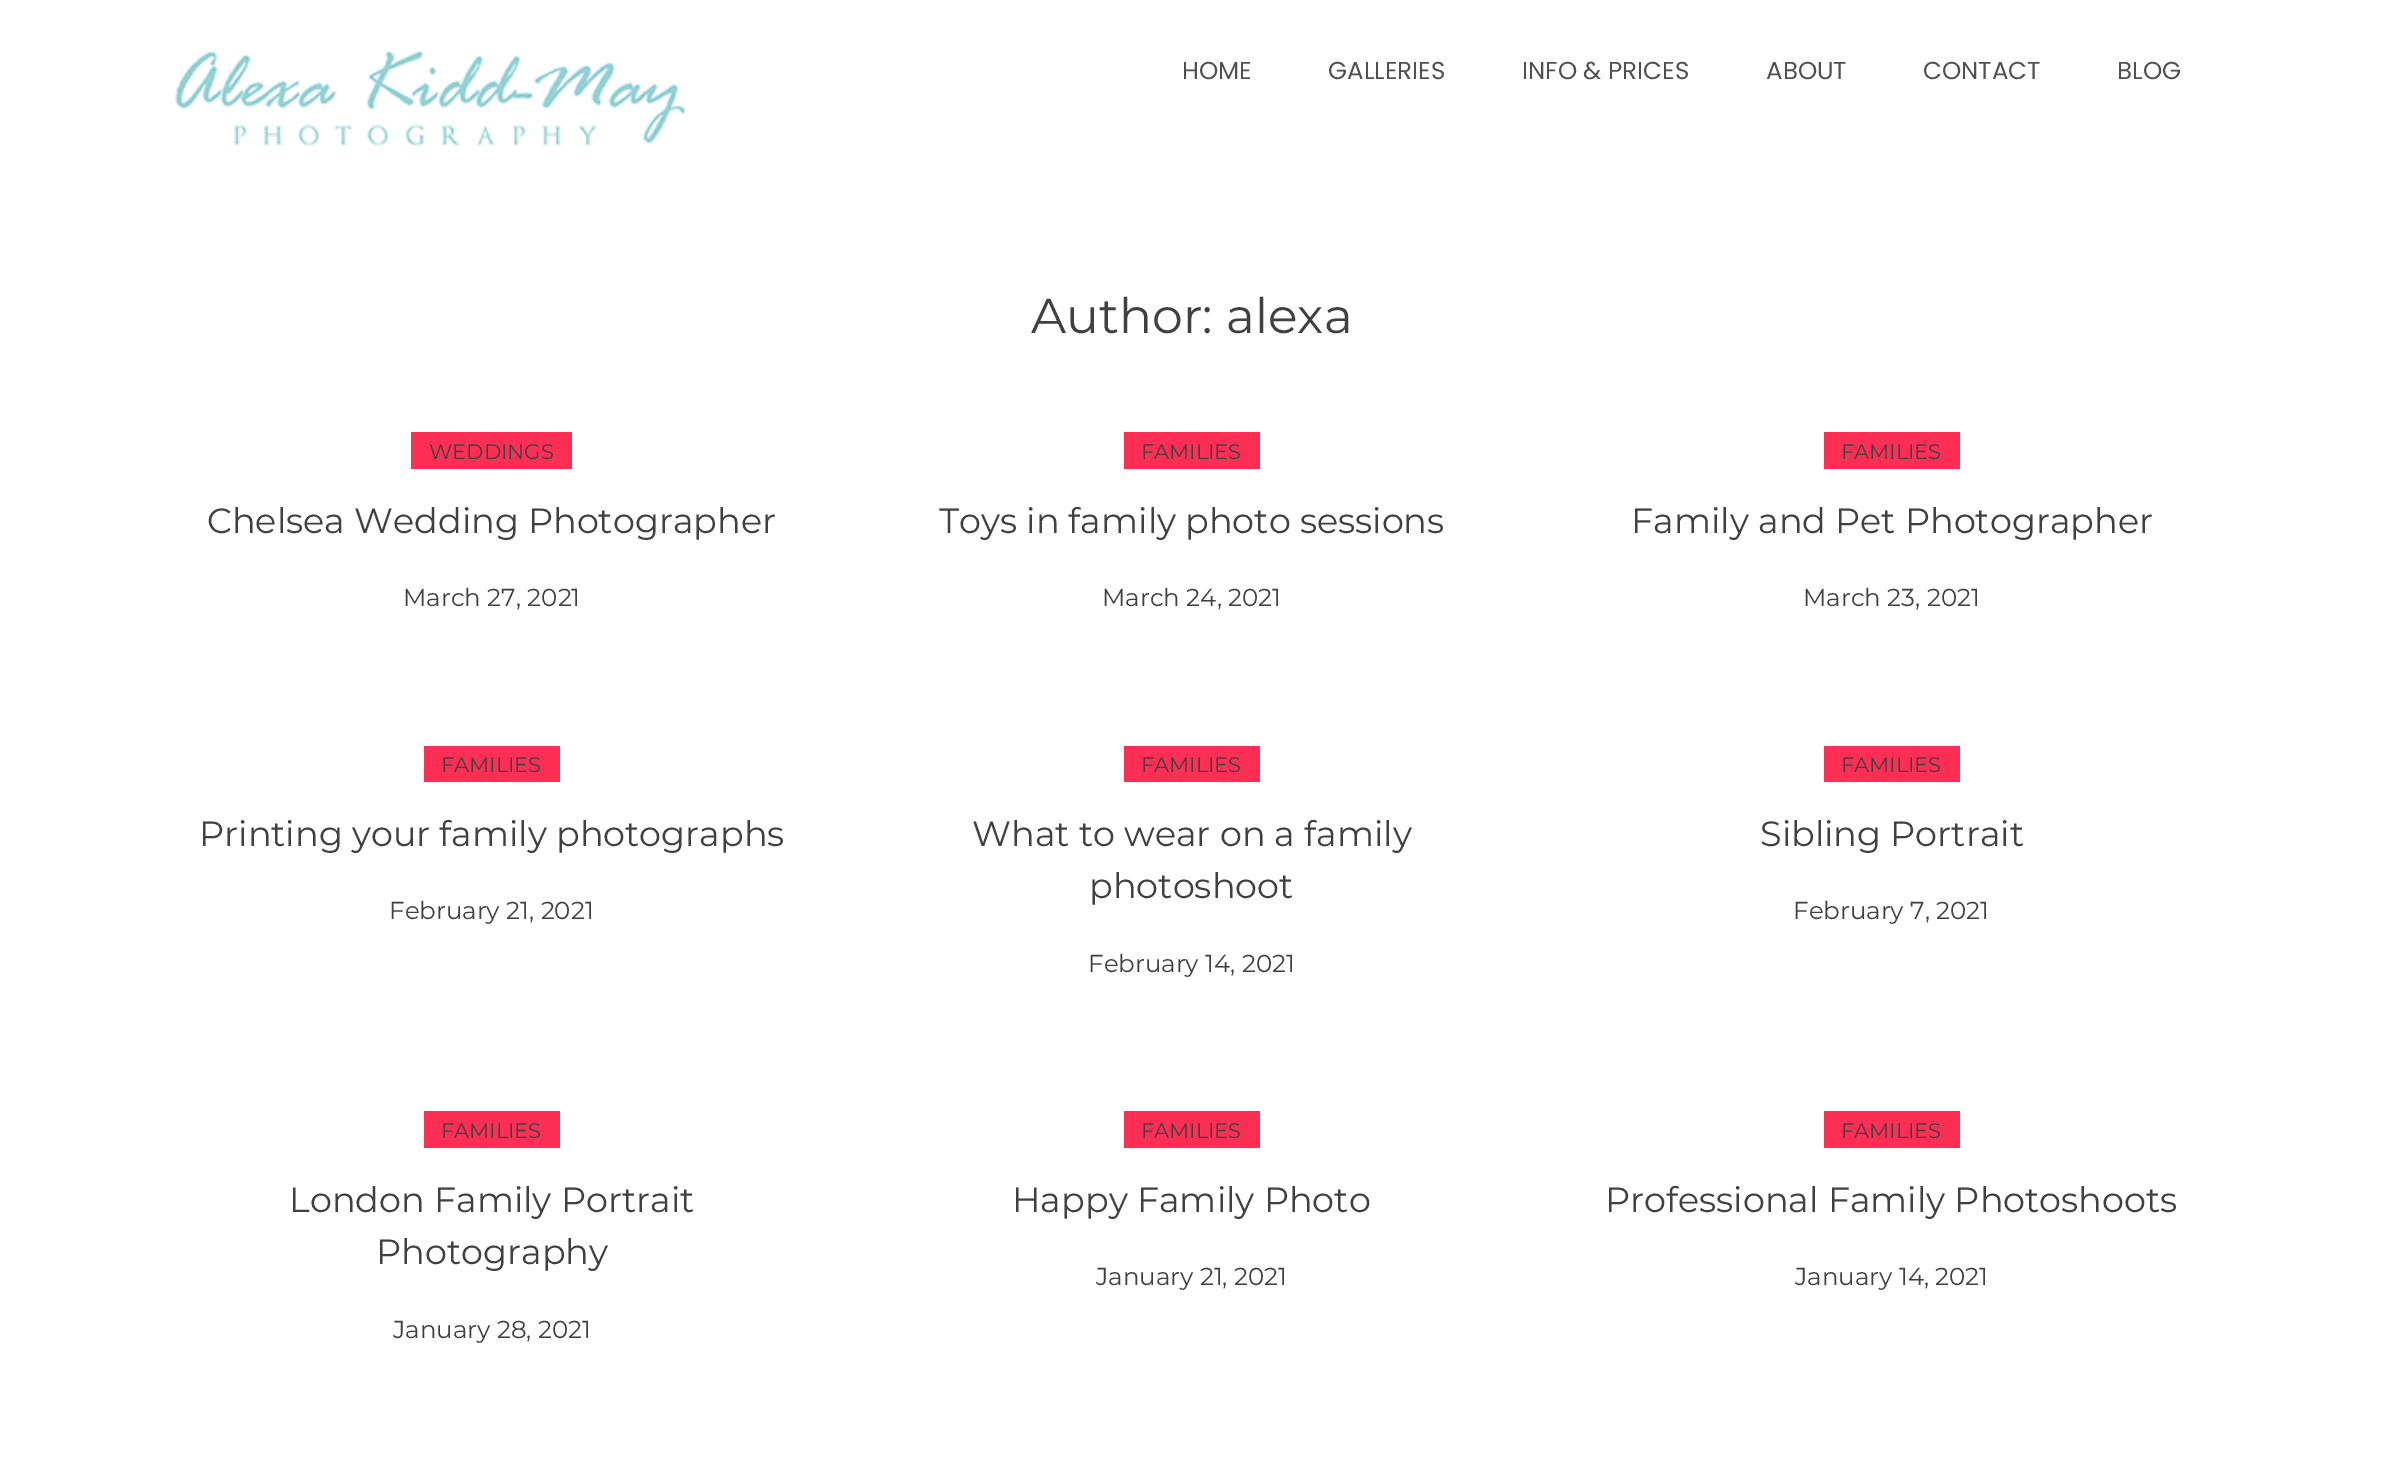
%!PS
<< /PageSize [2383 1465] >> setpagedevice
/rgb { 3 { 255 div 3 1 roll } repeat setrgbcolor } def
/font { [ exch dup neg 0 0 3 -1 roll 0 0 ] selectfont } def
/text { moveto show } def
/picture { 5 dict begin { /h /w /y /x /name } { exch def } forall
  gsave x y translate w h scale
  w h 8 [w 0 0 h 0 0] name (r) file false 3 colorimage grestore end } def
0 1465 translate 1 -1 scale
4 setmiterlimit
255 255 255 rgb
0 0 2383 1465 rectfill
(img_01.rgb) 174 50 512 96 picture
255 46 85 rgb
411 432 161 37 rectfill
1124 432 136 37 rectfill
1824 432 136 37 rectfill
424 746 136 36 rectfill
1124 746 136 36 rectfill
1824 746 136 36 rectfill
424 1111 136 37 rectfill
1124 1111 136 37 rectfill
1824 1111 136 37 rectfill
/Poppins-Regular 24.5 font
80 80 80 rgb
(HOME) 1182 79 text
(GALLERIES) 1328 79 text
(INFO & PRICES) 1522 79 text
(ABOUT) 1766 79 text
(CONTACT) 1923 79 text
(BLOG) 2117 79 text
/Montserrat-Thin 49 font
64 64 64 rgb
(Author: alexa) 1031 333 text
/Montserrat-Thin 21 font
(WEDDINGS) 429 459 text
/Montserrat-Thin 35 font
(Chelsea Wedding Photographer) 207 533 text
/Montserrat-Thin 24.5 font
(March 27, 2021) 403 606 text
/Montserrat-Thin 21 font
(FAMILIES) 1141 459 text
/Montserrat-Thin 35 font
(Toys in family photo sessions) 939 533 text
/Montserrat-Thin 24.5 font
(March 24, 2021) 1102 606 text
/Montserrat-Thin 21 font
(FAMILIES) 1841 459 text
/Montserrat-Thin 35 font
(Family and Pet Photographer) 1631 533 text
/Montserrat-Thin 24.5 font
(March 23, 2021) 1803 606 text
/Montserrat-Thin 21 font
(FAMILIES) 441 772 text
/Montserrat-Thin 35 font
(Printing your family photographs) 199 846 text
/Montserrat-Thin 24.5 font
(February 21, 2021) 389 919 text
/Montserrat-Thin 21 font
(FAMILIES) 1141 772 text
/Montserrat-Thin 35 font
(What to wear on a family) 972 846 text
(photoshoot) 1089 898 text
/Montserrat-Thin 24.5 font
(February 14, 2021) 1088 972 text
/Montserrat-Thin 21 font
(FAMILIES) 1841 772 text
/Montserrat-Thin 35 font
(Sibling Portrait) 1760 846 text
/Montserrat-Thin 24.5 font
(February 7, 2021) 1793 919 text
/Montserrat-Thin 21 font
(FAMILIES) 441 1138 text
/Montserrat-Thin 35 font
(London Family Portrait) 289 1212 text
(Photography) 376 1264 text
/Montserrat-Thin 24.5 font
(January 28, 2021) 393 1338 text
/Montserrat-Thin 21 font
(FAMILIES) 1141 1138 text
/Montserrat-Thin 35 font
(Happy Family Photo) 1012 1212 text
/Montserrat-Thin 24.5 font
(January 21, 2021) 1096 1285 text
/Montserrat-Thin 21 font
(FAMILIES) 1841 1138 text
/Montserrat-Thin 35 font
(Professional Family Photoshoots) 1605 1212 text
/Montserrat-Thin 24.5 font
(January 14, 2021) 1795 1285 text
showpage
